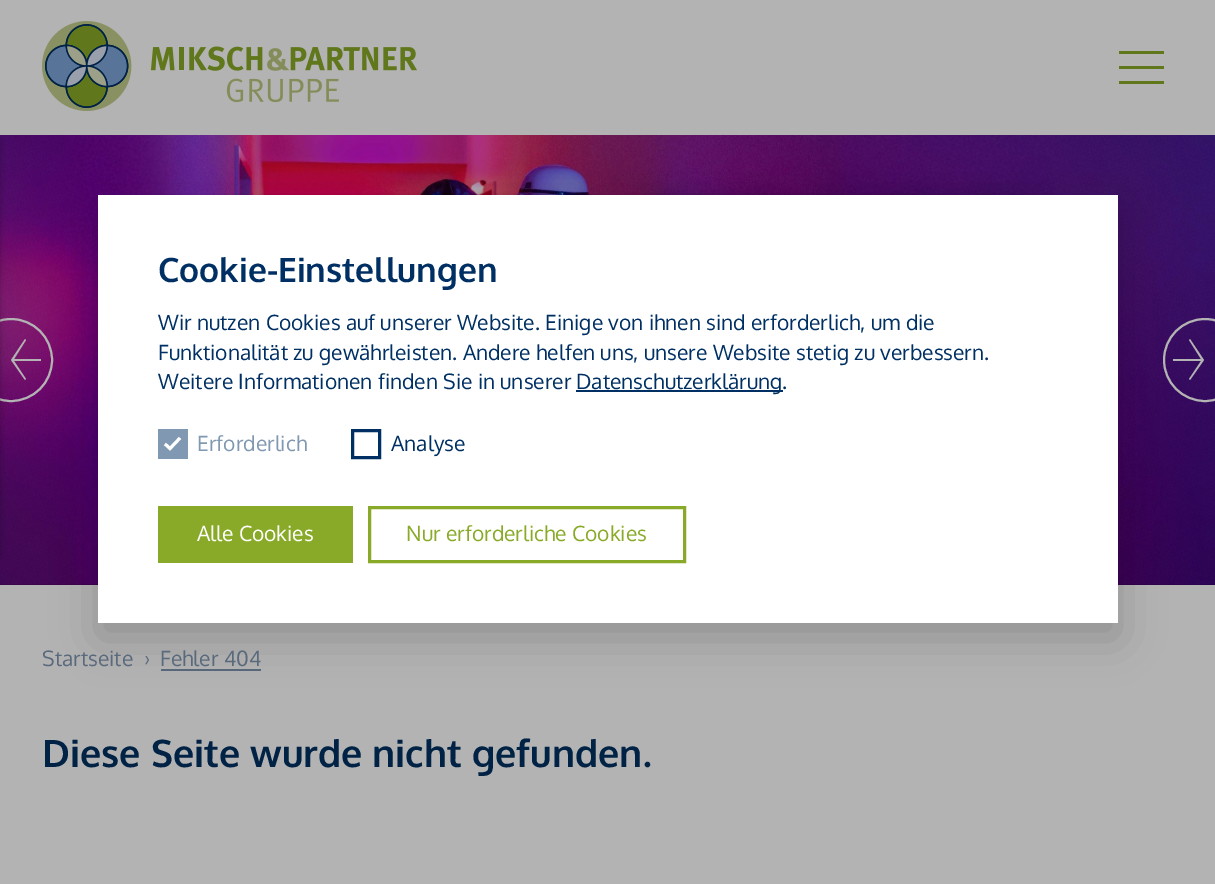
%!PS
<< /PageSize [1215 884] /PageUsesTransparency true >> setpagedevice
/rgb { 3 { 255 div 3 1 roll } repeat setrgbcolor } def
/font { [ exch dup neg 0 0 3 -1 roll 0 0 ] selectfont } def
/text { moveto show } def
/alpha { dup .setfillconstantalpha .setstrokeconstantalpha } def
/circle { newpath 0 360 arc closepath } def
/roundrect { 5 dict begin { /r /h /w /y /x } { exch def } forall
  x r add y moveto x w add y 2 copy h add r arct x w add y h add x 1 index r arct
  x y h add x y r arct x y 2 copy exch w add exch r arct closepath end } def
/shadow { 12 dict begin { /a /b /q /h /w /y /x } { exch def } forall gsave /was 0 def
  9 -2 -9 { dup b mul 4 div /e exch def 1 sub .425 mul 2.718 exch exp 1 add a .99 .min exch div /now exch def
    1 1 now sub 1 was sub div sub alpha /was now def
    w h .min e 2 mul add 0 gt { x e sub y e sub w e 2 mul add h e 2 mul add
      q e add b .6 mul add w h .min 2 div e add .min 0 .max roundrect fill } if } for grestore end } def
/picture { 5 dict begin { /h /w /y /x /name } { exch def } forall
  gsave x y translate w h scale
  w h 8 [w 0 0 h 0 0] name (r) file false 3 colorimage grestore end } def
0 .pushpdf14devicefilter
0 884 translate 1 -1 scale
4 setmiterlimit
179 179 179 rgb
0 0 1215 884 rectfill
(img_01.rgb) 42 21 375 90 picture
96 119 28 rgb
1119 51 45 3 rectfill
1119 66 45 3 rectfill
1119 81 45 3 rectfill
(img_02.rgb) 0 135 1215 450 picture
179 179 179 rgb
2 setlinewidth
11 360 41 circle stroke
0 0 0 rgb
-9 141 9 414 0 3 0.25 shadow
179 179 179 rgb
11 360 moveto 14 20 rlineto 1 -1 rlineto -12 -18 rlineto 27 0 rlineto 0 -2 rlineto -27 0 rlineto 12 -19 rlineto -1 -1 rlineto closepath fill
1205 360 41 circle stroke
1204 360 moveto -14 -21 rlineto -1 1 rlineto 12 19 rlineto -28 0 rlineto 0 2 rlineto 28 0 rlineto -12 18 rlineto 1 1 rlineto closepath fill
90 106 124 rgb
161 669 100 2 rectfill
0 0 0 rgb
98 210 1020 428 0 22.5 0.2 shadow
255 255 255 rgb
98 195 1020 428 rectfill
0 48 99 rgb
576 390 207 2 rectfill
128 152 177 rgb
158 429 30 30 rectfill
255 255 255 rgb
3 setlinewidth
165 444 moveto 5 4.5 rlineto 10 -10.5 rlineto stroke
0 48 99 rgb
352.5 430.5 27 27 rectstroke
137 170 40 rgb
158 506 195 57 rectfill
369.5 507.5 315 54 rectstroke
/Oxygen-Bold 33.6 font
0 48 99 rgb
(Cookie-Einstellungen) 158 282 text
/Oxygen-Regular 21 font
(Wir nutzen Cookies auf unserer Website. Einige von ihnen sind erforderlich, um die) 158 330 text
(Funktionalität zu gewährleisten. Andere helfen uns, unsere Website stetig zu verbessern.) 158 360 text
(Weitere Informationen finden Sie in unserer) 158 389 text
(Datenschutzerklärung.) 576 389 text
128 152 177 rgb
(Erforderlich) 197 451 text
0 48 99 rgb
(Analyse) 391 451 text
255 255 255 rgb
(Alle Cookies) 197 541 text
137 170 40 rgb
(Nur erforderliche Cookies) 406 541 text
90 106 124 rgb
(Startseite) 42 666 text
(›) 144 666 text
(Fehler 404) 160 666 text
/Oxygen-Bold 37.75 font
0 34 69 rgb
(Diese Seite wurde nicht gefunden.) 42 767 text
.poppdf14devicefilter showpage
